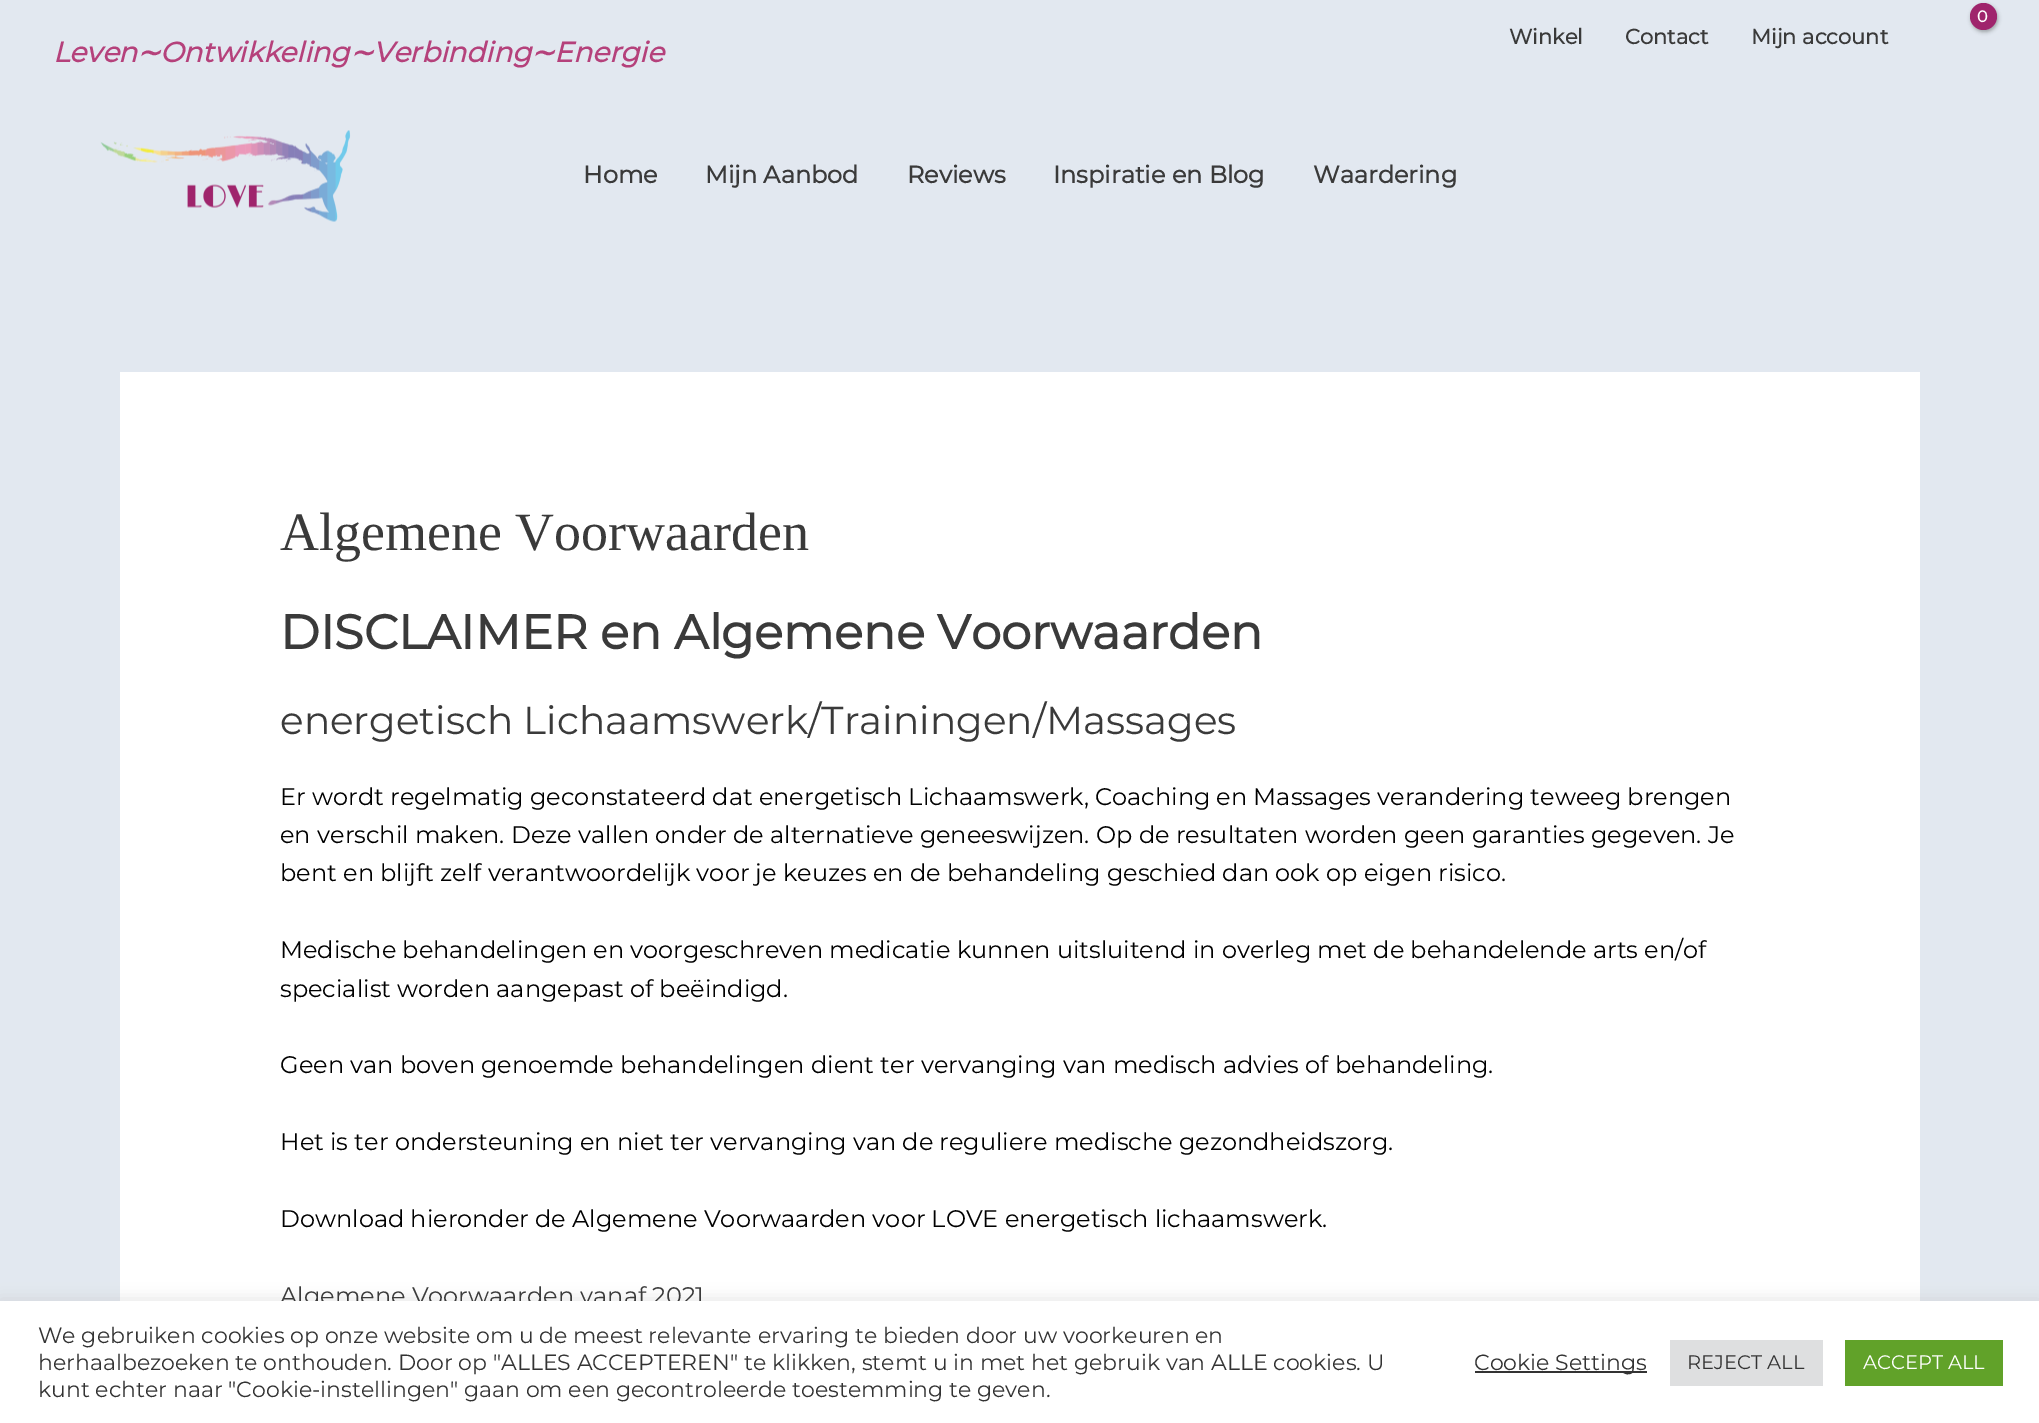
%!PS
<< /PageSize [2039 1423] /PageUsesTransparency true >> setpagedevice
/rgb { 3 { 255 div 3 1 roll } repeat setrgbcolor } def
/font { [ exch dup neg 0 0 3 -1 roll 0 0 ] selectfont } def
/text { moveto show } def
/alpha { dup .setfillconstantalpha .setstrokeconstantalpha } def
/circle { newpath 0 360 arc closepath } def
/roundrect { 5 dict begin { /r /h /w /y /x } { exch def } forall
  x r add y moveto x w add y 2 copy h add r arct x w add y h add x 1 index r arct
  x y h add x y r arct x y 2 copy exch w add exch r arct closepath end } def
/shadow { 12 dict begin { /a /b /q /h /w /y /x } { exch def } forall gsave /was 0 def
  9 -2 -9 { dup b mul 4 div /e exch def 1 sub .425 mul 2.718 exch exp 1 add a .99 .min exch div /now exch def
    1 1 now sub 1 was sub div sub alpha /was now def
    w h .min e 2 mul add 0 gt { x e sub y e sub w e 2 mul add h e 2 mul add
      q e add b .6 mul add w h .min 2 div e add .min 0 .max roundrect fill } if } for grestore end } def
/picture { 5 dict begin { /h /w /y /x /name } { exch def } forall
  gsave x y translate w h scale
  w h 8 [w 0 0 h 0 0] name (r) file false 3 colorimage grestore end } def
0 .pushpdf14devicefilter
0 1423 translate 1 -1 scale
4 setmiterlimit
226 232 240 rgb
0 0 2039 1423 rectfill
0 0 0 rgb
1971 5 27 27 13.5 2 0.3 shadow
159 36 108 rgb
1983.5 16.5 13.5 circle fill
(img_01.rgb) 100 130 251 92 picture
255 255 255 rgb
120 372 1800 929 rectfill
172 171 171 rgb
0 1299 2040 123 0 7.5 0.3 shadow
/Montserrat-Bold 16 font
255 255 255 rgb
1977 22 moveto -1 0 (0) ashow
/Montserrat-Bold 21 font
58 58 58 rgb
(Winkel) 1509 44 text
(Contact) 1625 44 text
(Mijn account) 1751 44 text
/Montserrat-BoldItalic 28 font
181 65 123 rgb
(Leven) 53 62 text
/DejaVuSans-BoldItalic 28 font
(∼) 137 62 text
/Montserrat-BoldItalic 28 font
(Ontwikkeling) 160 62 text
/DejaVuSans-BoldItalic 28 font
(∼) 350 62 text
/Montserrat-BoldItalic 28 font
(Verbinding) 373 62 text
/DejaVuSans-BoldItalic 28 font
(∼) 531 62 text
/Montserrat-BoldItalic 28 font
(Energie) 554 62 text
/Montserrat-Bold 24 font
58 58 58 rgb
(Home) 583 183 text
(Mijn Aanbod) 705 183 text
(Reviews) 907 183 text
(Inspiratie en Blog) 1053 183 text
(Waardering) 1313 183 text
/LiberationSerif-Regular 54 font
(Algemene Voorwaarden) 280 550 text
/Montserrat-Bold 48 font
(DISCLAIMER en Algemene Voorwaarden) 280 649 text
/Montserrat-Thin 39 font
(energetisch Lichaamswerk/Trainingen/Massages) 280 734 text
/Montserrat-Thin 24 font
0 0 0 rgb
(Er wordt regelmatig geconstateerd dat energetisch Lichaamswerk, Coaching en Massages verandering teweeg brengen) 280 805 text
(en verschil maken. Deze vallen onder de alternatieve geneeswijzen. Op de resultaten worden geen garanties gegeven. Je) 280 843 text
(bent en blijft zelf verantwoordelijk voor je keuzes en de behandeling geschied dan ook op eigen risico.) 280 881 text
(Medische behandelingen en voorgeschreven medicatie kunnen uitsluitend in overleg met de behandelende arts en/of) 280 958 text
(specialist worden aangepast of beëindigd.) 280 997 text
(Geen van boven genoemde behandelingen dient ter vervanging van medisch advies of behandeling.) 280 1073 text
(Het is ter ondersteuning en niet ter vervanging van de reguliere medische gezondheidszorg.) 280 1150 text
(Download hieronder de Algemene Voorwaarden voor LOVE energetisch lichaamswerk.) 280 1227 text
58 58 58 rgb
(Algemene Voorwaarden vanaf 2021) 280 1304 text
255 255 255 rgb
0 1301 2039 122 rectfill
/Montserrat-Thin 22 font
51 51 51 rgb
(We gebruiken cookies op onze website om u de meest relevante ervaring te bieden door uw voorkeuren en) 38 1343 text
(herhaalbezoeken te onthouden. Door op "ALLES ACCEPTEREN" te klikken, stemt u in met het gebruik van ALLE cookies. U) 38 1370 text
(kunt echter naar "Cookie-instellingen" gaan om een gecontroleerde toestemming te geven.) 38 1397 text
1475 1371 172 2 rectfill
(Cookie Settings) 1474 1370 text
222 223 224 rgb
1670 1340 153 46 rectfill
/Montserrat-Thin 19.5 font
51 51 51 rgb
(REJECT ALL) 1687 1369 text
97 162 41 rgb
1845 1340 158 46 rectfill
255 255 255 rgb
(ACCEPT ALL) 1863 1369 text
.poppdf14devicefilter showpage
